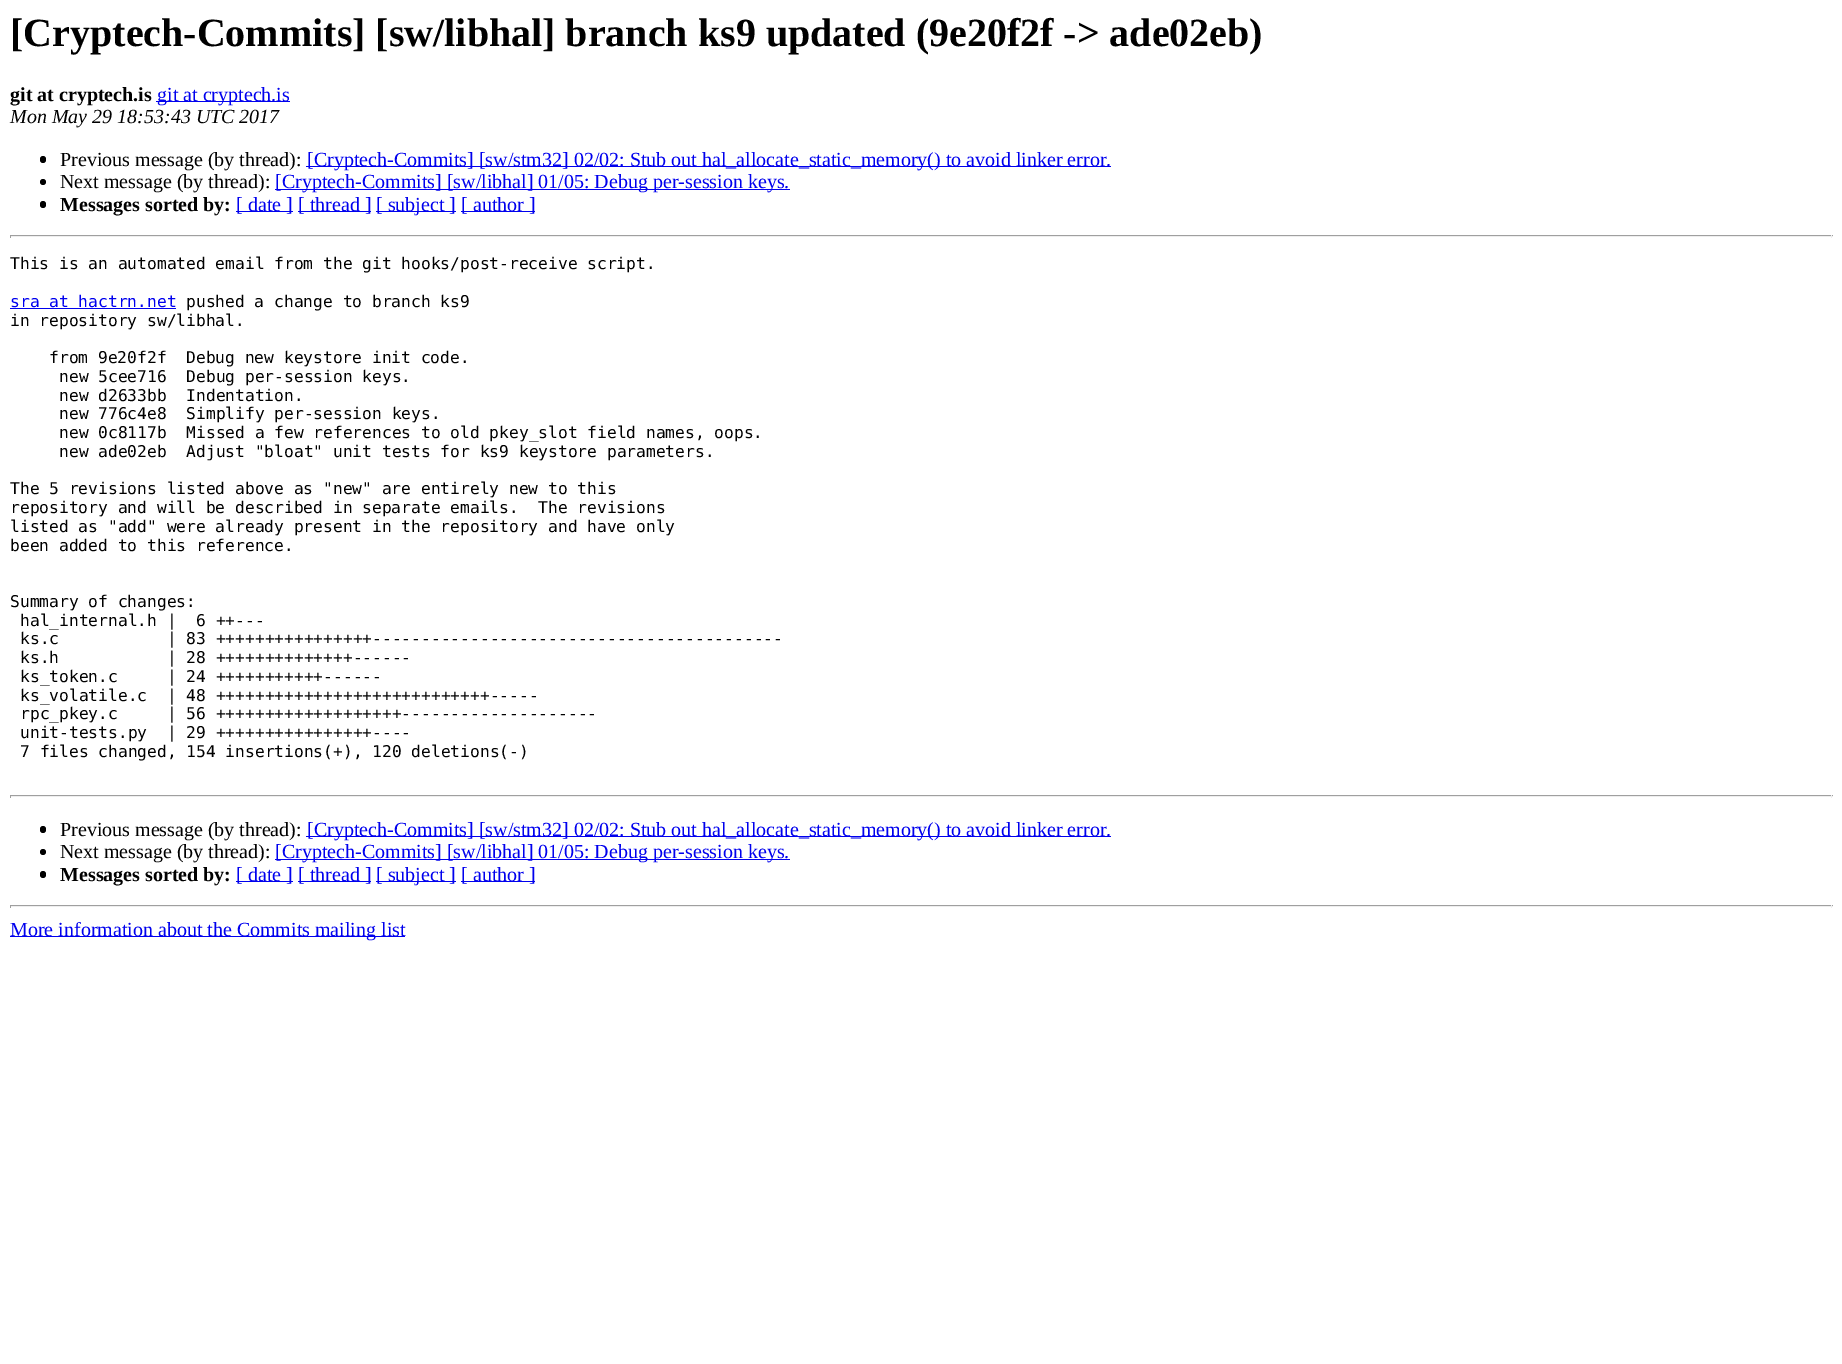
%!PS
<< /PageSize [1842 1364] >> setpagedevice
/rgb { 3 { 255 div 3 1 roll } repeat setrgbcolor } def
/font { [ exch dup neg 0 0 3 -1 roll 0 0 ] selectfont } def
/text { moveto show } def
/circle { newpath 0 360 arc closepath } def
/roundrect { 5 dict begin { /r /h /w /y /x } { exch def } forall
  x r add y moveto x w add y 2 copy h add r arct x w add y h add x 1 index r arct
  x y h add x y r arct x y 2 copy exch w add exch r arct closepath end } def
0 1364 translate 1 -1 scale
4 setmiterlimit
255 255 255 rgb
0 0 1842 1364 rectfill
0 0 238 rgb
156 101 134 1 rectfill
0 0 0 rgb
40 156 6 7 3 roundrect fill
0 0 238 rgb
306 166 805 1 rectfill
0 0 0 rgb
43 182 3 circle fill
0 0 238 rgb
275 189 515 1 rectfill
0 0 0 rgb
40 201 6 7 3 roundrect fill
0 0 238 rgb
236 211 57 1 rectfill
298 211 73 1 rectfill
376 211 80 1 rectfill
461 211 74 1 rectfill
159 159 159 rgb
10 235 1823 1 rectfill
238 238 238 rgb
1831 235 1 3 rectfill
10 236 1823 1 rectfill
159 159 159 rgb
10 235 1 3 rectfill
0 0 238 rgb
10 308 166 1 rectfill
159 159 159 rgb
10 795 1823 1 rectfill
238 238 238 rgb
1831 795 1 3 rectfill
10 796 1823 1 rectfill
159 159 159 rgb
10 795 1 3 rectfill
0 0 0 rgb
40 826 6 7 3 roundrect fill
0 0 238 rgb
306 836 805 1 rectfill
0 0 0 rgb
43 852 3 circle fill
0 0 238 rgb
275 859 515 1 rectfill
0 0 0 rgb
40 871 6 7 3 roundrect fill
0 0 238 rgb
236 881 57 1 rectfill
298 881 73 1 rectfill
376 881 80 1 rectfill
461 881 74 1 rectfill
159 159 159 rgb
10 905 1823 1 rectfill
238 238 238 rgb
1831 905 1 3 rectfill
10 906 1823 1 rectfill
159 159 159 rgb
10 905 1 3 rectfill
0 0 238 rgb
10 936 395 1 rectfill
/LiberationSerif-Bold 40 font
0 0 0 rgb
([Cryptech-Commits] [sw/libhal] branch ks9 updated \(9e20f2f -> ade02eb\)) 10 46 text
/LiberationSerif-Bold 20 font
(git at cryptech.is) 10 101 text
/LiberationSerif-Regular 20 font
0 0 238 rgb
(git at cryptech.is) 157 101 text
/LiberationSerif-Italic 20 font
0 0 0 rgb
(Mon May 29 18:53:43 UTC 2017) 10 123 text
/LiberationSerif-Regular 20 font
(Previous message \(by thread\):) 60 166 text
0 0 238 rgb
([Cryptech-Commits] [sw/stm32] 02/02: Stub out hal_allocate_static_memory\(\) to avoid linker error.) 307 166 text
0 0 0 rgb
(Next message \(by thread\):) 60 188 text
0 0 238 rgb
([Cryptech-Commits] [sw/libhal] 01/05: Debug per-session keys.) 275 188 text
/LiberationSerif-Bold 20 font
0 0 0 rgb
(Messages sorted by:) 60 211 text
/LiberationSerif-Regular 20 font
0 0 238 rgb
([ date ]) 236 211 text
([ thread ]) 298 211 text
([ subject ]) 376 211 text
([ author ]) 461 211 text
/DejaVuSansMono-Regular 16.25 font
0 0 0 rgb
(This is an automated email from the git hooks/post-receive script.) 10 269 text
0 0 238 rgb
(sra at hactrn.net) 10 307 text
0 0 0 rgb
(pushed a change to branch ks9) 186 307 text
(in repository sw/libhal.) 10 326 text
(from 9e20f2f  Debug new keystore init code.) 49 363 text
(new 5cee716  Debug per-session keys.) 59 382 text
(new d2633bb  Indentation.) 59 401 text
(new 776c4e8  Simplify per-session keys.) 59 419 text
(new 0c8117b  Missed a few references to old pkey_slot field names, oops.) 59 438 text
(new ade02eb  Adjust "bloat" unit tests for ks9 keystore parameters.) 59 457 text
(The 5 revisions listed above as "new" are entirely new to this) 10 494 text
(repository and will be described in separate emails.  The revisions) 10 513 text
(listed as "add" were already present in the repository and have only) 10 532 text
(been added to this reference.) 10 551 text
(Summary of changes:) 10 607 text
(hal_internal.h |  6 ++---) 20 626 text
(ks.c           | 83 ++++++++++++++++------------------------------------------) 20 644 text
(ks.h           | 28 ++++++++++++++------) 20 663 text
(ks_token.c     | 24 +++++++++++------) 20 682 text
(ks_volatile.c  | 48 ++++++++++++++++++++++++++++-----) 20 701 text
(rpc_pkey.c     | 56 +++++++++++++++++++--------------------) 20 719 text
(unit-tests.py  | 29 ++++++++++++++++----) 20 738 text
(7 files changed, 154 insertions\(+\), 120 deletions\(-\)) 20 757 text
/LiberationSerif-Regular 20 font
(Previous message \(by thread\):) 60 836 text
0 0 238 rgb
([Cryptech-Commits] [sw/stm32] 02/02: Stub out hal_allocate_static_memory\(\) to avoid linker error.) 307 836 text
0 0 0 rgb
(Next message \(by thread\):) 60 858 text
0 0 238 rgb
([Cryptech-Commits] [sw/libhal] 01/05: Debug per-session keys.) 275 858 text
/LiberationSerif-Bold 20 font
0 0 0 rgb
(Messages sorted by:) 60 881 text
/LiberationSerif-Regular 20 font
0 0 238 rgb
([ date ]) 236 881 text
([ thread ]) 298 881 text
([ subject ]) 376 881 text
([ author ]) 461 881 text
(More information about the Commits mailing list) 10 936 text
showpage
